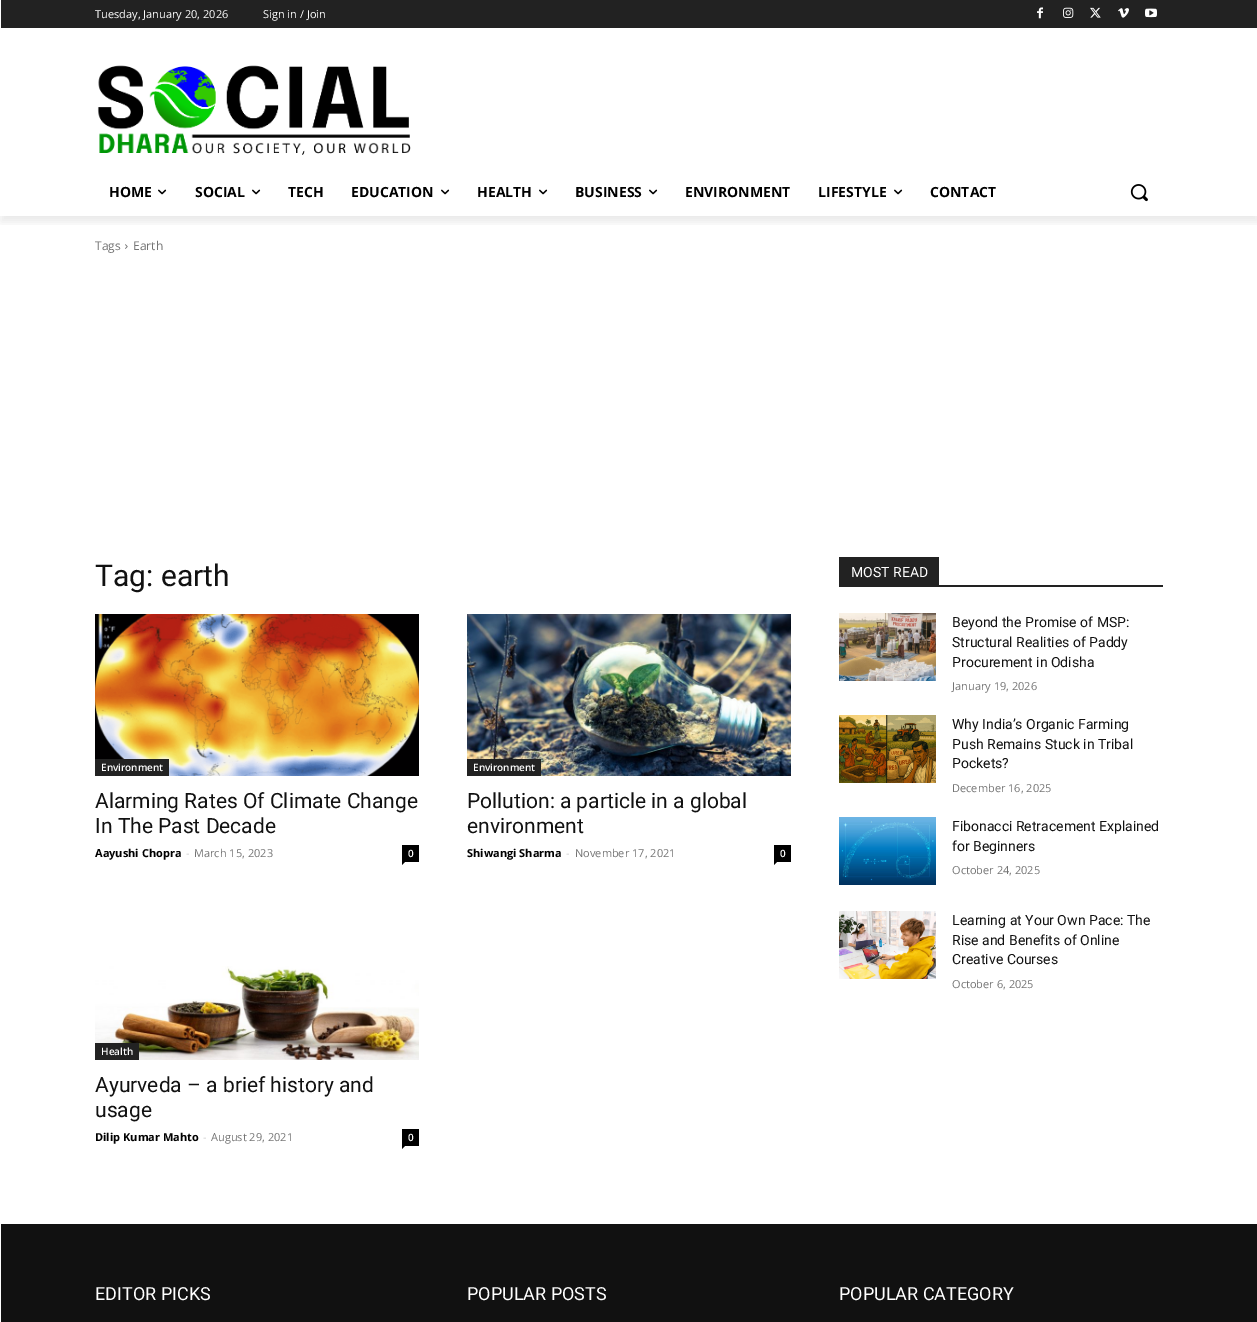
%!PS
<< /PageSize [1257 1322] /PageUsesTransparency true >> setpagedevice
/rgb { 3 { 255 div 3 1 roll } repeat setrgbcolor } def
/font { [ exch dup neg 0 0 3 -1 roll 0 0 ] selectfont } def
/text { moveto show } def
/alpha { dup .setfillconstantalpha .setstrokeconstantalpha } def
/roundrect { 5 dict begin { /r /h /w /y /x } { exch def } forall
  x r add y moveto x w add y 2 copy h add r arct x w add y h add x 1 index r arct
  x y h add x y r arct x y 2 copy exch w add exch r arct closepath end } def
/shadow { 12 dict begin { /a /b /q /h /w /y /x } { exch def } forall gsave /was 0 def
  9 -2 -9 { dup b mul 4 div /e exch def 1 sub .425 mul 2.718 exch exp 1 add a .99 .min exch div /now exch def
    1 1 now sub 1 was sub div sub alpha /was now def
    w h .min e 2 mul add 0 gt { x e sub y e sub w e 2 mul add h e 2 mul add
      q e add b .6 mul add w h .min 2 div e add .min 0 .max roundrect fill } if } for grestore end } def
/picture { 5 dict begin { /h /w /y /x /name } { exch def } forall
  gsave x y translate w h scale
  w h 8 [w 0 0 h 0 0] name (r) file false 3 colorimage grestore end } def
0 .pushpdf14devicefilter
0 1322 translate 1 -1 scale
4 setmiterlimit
255 255 255 rgb
0 0 1257 1322 rectfill
34 34 34 rgb
1 0 1256 28 rectfill
(img_01.rgb) 1037 7 6 12 picture
(img_02.rgb) 1063 7 11 11 picture
(img_03.rgb) 1090 7 11 11 picture
(img_04.rgb) 1118 8 11 10 picture
(img_05.rgb) 1145 8 12 10 picture
(img_06.rgb) 97 65 314 90 picture
gsave
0 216 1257 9 rectclip
0 0 0 rgb
1 6 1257 216 0 4 0.08 shadow
grestore
(img_07.rgb) 158 189 9 6 picture
(img_07.rgb) 252 189 9 6 picture
(img_07.rgb) 441 189 9 6 picture
(img_07.rgb) 539 189 9 6 picture
(img_07.rgb) 649 189 9 6 picture
(img_07.rgb) 894 189 9 6 picture
(img_08.rgb) 1130 184 18 18 picture
(img_09.rgb) 125 244 3 5 picture
(img_10.rgb) 95 614 324 162 picture
95 759 74 17 rectfill
0 0 0 rgb
402 845 17 17 rectfill
402 862 moveto 3 0 rlineto -3 3 rlineto closepath fill
(img_11.rgb) 467 614 324 162 picture
34 34 34 rgb
467 759 74 17 rectfill
0 0 0 rgb
774 845 17 17 rectfill
774 862 moveto 3 0 rlineto -3 3 rlineto closepath fill
(img_12.rgb) 95 966 324 94 picture
34 34 34 rgb
95 1043 44 17 rectfill
0 0 0 rgb
402 1129 17 17 rectfill
402 1146 moveto 3 0 rlineto -3 3 rlineto closepath fill
34 34 34 rgb
839 585 324 2 rectfill
839 557 100 28 rectfill
(img_13.rgb) 839 613 97 68 picture
(img_14.rgb) 839 715 97 68 picture
(img_15.rgb) 839 817 97 68 picture
(img_16.rgb) 839 911 97 68 picture
17 17 17 rgb
1 1224 1256 98 rectfill
/OpenSans-Regular 11 font
255 255 255 rgb
(Tuesday, January 20, 2026) 95 18 text
(Sign in / Join) 263 18 text
/OpenSans-Bold 14 font
0 0 0 rgb
(HOME) 109 197 text
(SOCIAL) 195 197 text
(TECH) 288 197 text
(EDUCATION) 351 197 text
(HEALTH) 477 197 text
(BUSINESS) 575 197 text
(ENVIRONMENT) 685 197 text
(LIFESTYLE) 818 197 text
(CONTACT) 930 197 text
/OpenSans-Regular 12 font
116 116 116 rgb
(Tags) 95 250 text
(Earth) 133 250 text
/Roboto-Regular 30 font
17 17 17 rgb
(Tag: earth) 95 586 text
/OpenSans-SemiBold 10 font
255 255 255 rgb
(Environment) 101 771 text
/Roboto-Regular 21 font
17 17 17 rgb
(Alarming Rates Of Climate Change) 95 808 text
(In The Past Decade) 95 833 text
/OpenSans-Bold 11 font
0 0 0 rgb
(Aayushi Chopra) 95 857 text
/OpenSans-Regular 11 font
204 204 204 rgb
(-) 186 857 text
116 116 116 rgb
(March 15, 2023) 194 857 text
/OpenSans-SemiBold 10 font
255 255 255 rgb
(0) 408 857 text
(Environment) 473 771 text
/Roboto-Regular 21 font
17 17 17 rgb
(Pollution: a particle in a global) 467 808 text
(environment) 467 833 text
/OpenSans-Bold 11 font
0 0 0 rgb
(Shiwangi Sharma) 467 857 text
/OpenSans-Regular 11 font
204 204 204 rgb
(-) 566 857 text
116 116 116 rgb
(November 17, 2021) 575 857 text
/OpenSans-SemiBold 10 font
255 255 255 rgb
(0) 780 857 text
(Health) 101 1055 text
/Roboto-Regular 21 font
17 17 17 rgb
(Ayurveda – a brief history and) 95 1092 text
(usage) 95 1117 text
/OpenSans-Bold 11 font
0 0 0 rgb
(Dilip Kumar Mahto) 95 1141 text
/OpenSans-Regular 11 font
204 204 204 rgb
(-) 203 1141 text
116 116 116 rgb
(August 29, 2021) 211 1141 text
/OpenSans-SemiBold 10 font
255 255 255 rgb
(0) 408 1141 text
/Roboto-Regular 14 font
(MOST READ) 851 577 text
17 17 17 rgb
(Beyond the Promise of MSP:) 952 627 text
(Structural Realities of Paddy) 952 647 text
(Procurement in Odisha) 952 667 text
/OpenSans-Regular 11 font
116 116 116 rgb
(January 19, 2026) 952 690 text
/Roboto-Regular 14 font
17 17 17 rgb
(Why India’s Organic Farming) 952 729 text
(Push Remains Stuck in Tribal) 952 749 text
(Pockets?) 952 768 text
/OpenSans-Regular 11 font
116 116 116 rgb
(December 16, 2025) 952 792 text
/Roboto-Regular 14 font
17 17 17 rgb
(Fibonacci Retracement Explained) 952 831 text
(for Beginners) 952 851 text
/OpenSans-Regular 11 font
116 116 116 rgb
(October 24, 2025) 952 874 text
/Roboto-Regular 14 font
17 17 17 rgb
(Learning at Your Own Pace: The) 952 925 text
(Rise and Benefits of Online) 952 945 text
(Creative Courses) 952 964 text
/OpenSans-Regular 11 font
116 116 116 rgb
(October 6, 2025) 952 988 text
/Roboto-Regular 18 font
255 255 255 rgb
(EDITOR PICKS) 95 1300 text
(POPULAR POSTS) 467 1300 text
(POPULAR CATEGORY) 839 1300 text
.poppdf14devicefilter showpage
